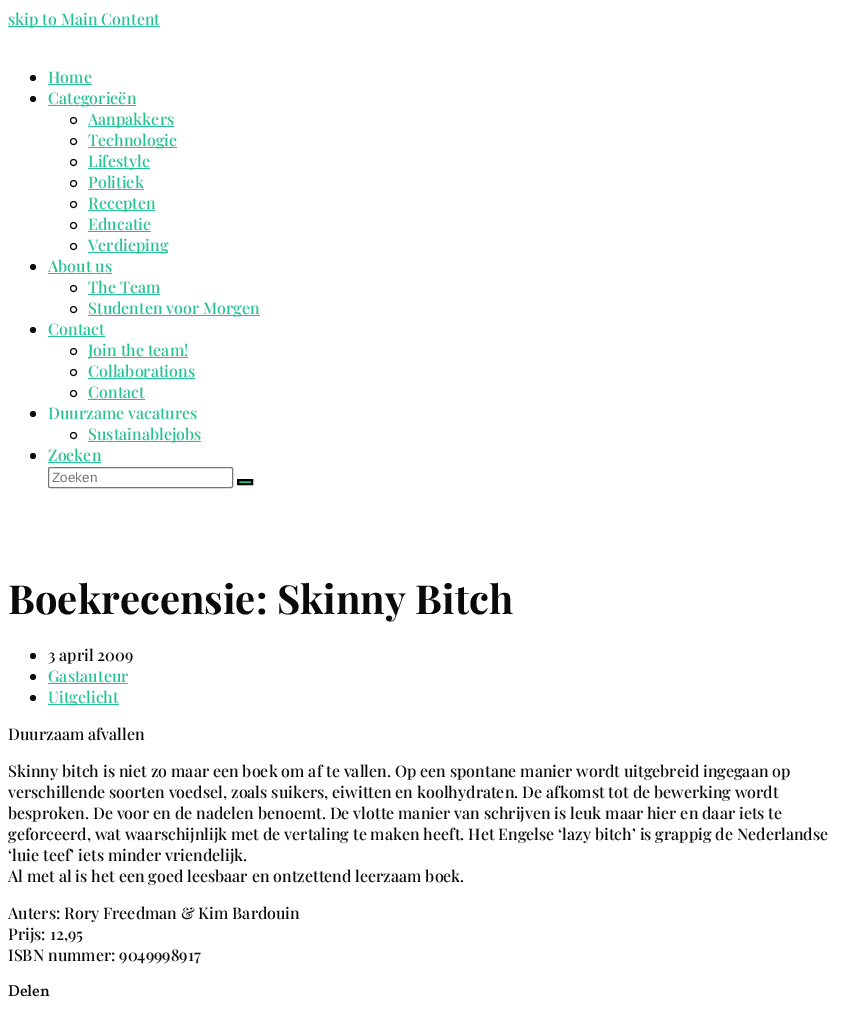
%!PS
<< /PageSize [864 1013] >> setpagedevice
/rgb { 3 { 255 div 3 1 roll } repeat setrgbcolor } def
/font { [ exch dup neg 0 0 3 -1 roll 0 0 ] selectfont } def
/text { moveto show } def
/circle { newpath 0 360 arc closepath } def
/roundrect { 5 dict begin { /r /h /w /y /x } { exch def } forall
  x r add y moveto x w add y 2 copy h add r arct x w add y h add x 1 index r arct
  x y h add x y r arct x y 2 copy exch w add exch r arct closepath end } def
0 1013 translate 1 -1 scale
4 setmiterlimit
255 255 255 rgb
0 0 864 1013 rectfill
36 194 145 rgb
8 26 152 1 rectfill
12 12 12 rgb
33 78 3 circle fill
36 194 145 rgb
48 84 44 1 rectfill
12 12 12 rgb
33 99 3 circle fill
36 194 145 rgb
48 105 88 1 rectfill
12 12 12 rgb
73.5 120.5 3 circle stroke
36 194 145 rgb
88 126 86 1 rectfill
12 12 12 rgb
73.5 141.5 3 circle stroke
36 194 145 rgb
88 147 89 1 rectfill
12 12 12 rgb
73.5 162.5 3 circle stroke
36 194 145 rgb
88 168 62 1 rectfill
12 12 12 rgb
73.5 183.5 3 circle stroke
36 194 145 rgb
88 189 56 1 rectfill
12 12 12 rgb
73.5 204.5 3 circle stroke
36 194 145 rgb
88 210 67 1 rectfill
12 12 12 rgb
73.5 225.5 3 circle stroke
36 194 145 rgb
88 231 63 1 rectfill
12 12 12 rgb
73.5 246.5 3 circle stroke
36 194 145 rgb
88 252 80 1 rectfill
12 12 12 rgb
33 267 3 circle fill
36 194 145 rgb
48 273 64 1 rectfill
12 12 12 rgb
73.5 288.5 3 circle stroke
36 194 145 rgb
88 294 72 1 rectfill
12 12 12 rgb
73.5 309.5 3 circle stroke
36 194 145 rgb
88 315 172 1 rectfill
12 12 12 rgb
33 330 3 circle fill
36 194 145 rgb
48 336 57 1 rectfill
12 12 12 rgb
73.5 351.5 3 circle stroke
36 194 145 rgb
88 357 100 1 rectfill
12 12 12 rgb
73.5 372.5 3 circle stroke
36 194 145 rgb
88 378 107 1 rectfill
12 12 12 rgb
73.5 393.5 3 circle stroke
36 194 145 rgb
88 399 57 1 rectfill
12 12 12 rgb
33 414 3 circle fill
73.5 435.5 3 circle stroke
36 194 145 rgb
88 441 113 1 rectfill
12 12 12 rgb
33 456 3 circle fill
36 194 145 rgb
48 462 53 1 rectfill
118 118 118 rgb
48.5 467.5 184 20 1.5 roundrect stroke
36 194 145 rgb
238 480 moveto 14 0 rlineto 0 4 rlineto -14 0 rlineto closepath gsave fill grestore
0 0 0 rgb
2 setlinewidth
stroke
12 12 12 rgb
33 656 3 circle fill
33 677 3 circle fill
36 194 145 rgb
48 683 80 1 rectfill
12 12 12 rgb
33 698 3 circle fill
36 194 145 rgb
48 704 71 1 rectfill
/PlayfairDisplay-Medium 16 font
(skip to Main Content) 8 25 text
(Home) 48 83 text
(Categorieën) 48 104 text
(Aanpakkers) 88 125 text
(Technologie) 88 146 text
(Lifestyle) 88 167 text
(Politiek) 88 188 text
(Recepten) 88 209 text
(Educatie) 88 230 text
(Verdieping) 88 251 text
(About us) 48 272 text
(The Team) 88 293 text
(Studenten voor Morgen) 88 314 text
(Contact) 48 335 text
(Join the team!) 88 356 text
(Collaborations) 88 377 text
(Contact) 88 398 text
(Duurzame vacatures) 48 419 text
(Sustainablejobs) 88 440 text
(Zoeken) 48 461 text
/LiberationSans-Regular 13.5 font
117 117 117 rgb
(Zoeken) 52 482 text
/PlayfairDisplay-Bold 40 font
10 10 10 rgb
(Boekrecensie: Skinny Bitch) 8 614 text
/PlayfairDisplay-Medium 16 font
(3 april 2009) 48 661 text
36 194 145 rgb
(Gastauteur) 48 682 text
(Uitgelicht) 48 703 text
10 10 10 rgb
(Duurzaam afvallen) 8 740 text
(Skinny bitch is niet zo maar een boek om af te vallen. Op een spontane manier wordt uitgebreid ingegaan op) 8 777 text
(verschillende soorten voedsel, zoals suikers, eiwitten en koolhydraten. De afkomst tot de bewerking wordt) 8 798 text
(besproken. De voor en de nadelen benoemt. De vlotte manier van schrijven is leuk maar hier en daar iets te) 8 819 text
(geforceerd, wat waarschijnlijk met de vertaling te maken heeft. Het Engelse ‘lazy bitch’ is grappig de Nederlandse) 8 840 text
(‘luie teef’ iets minder vriendelijk.) 8 861 text
(Al met al is het een goed leesbaar en ontzettend leerzaam boek.) 8 882 text
(Auters: Rory Freedman & Kim Bardouin) 8 919 text
(Prijs: 12,95) 8 940 text
(ISBN nummer: 9049998917) 8 961 text
/Vollkorn-Medium 16 font
(Delen) 8 996 text
showpage
